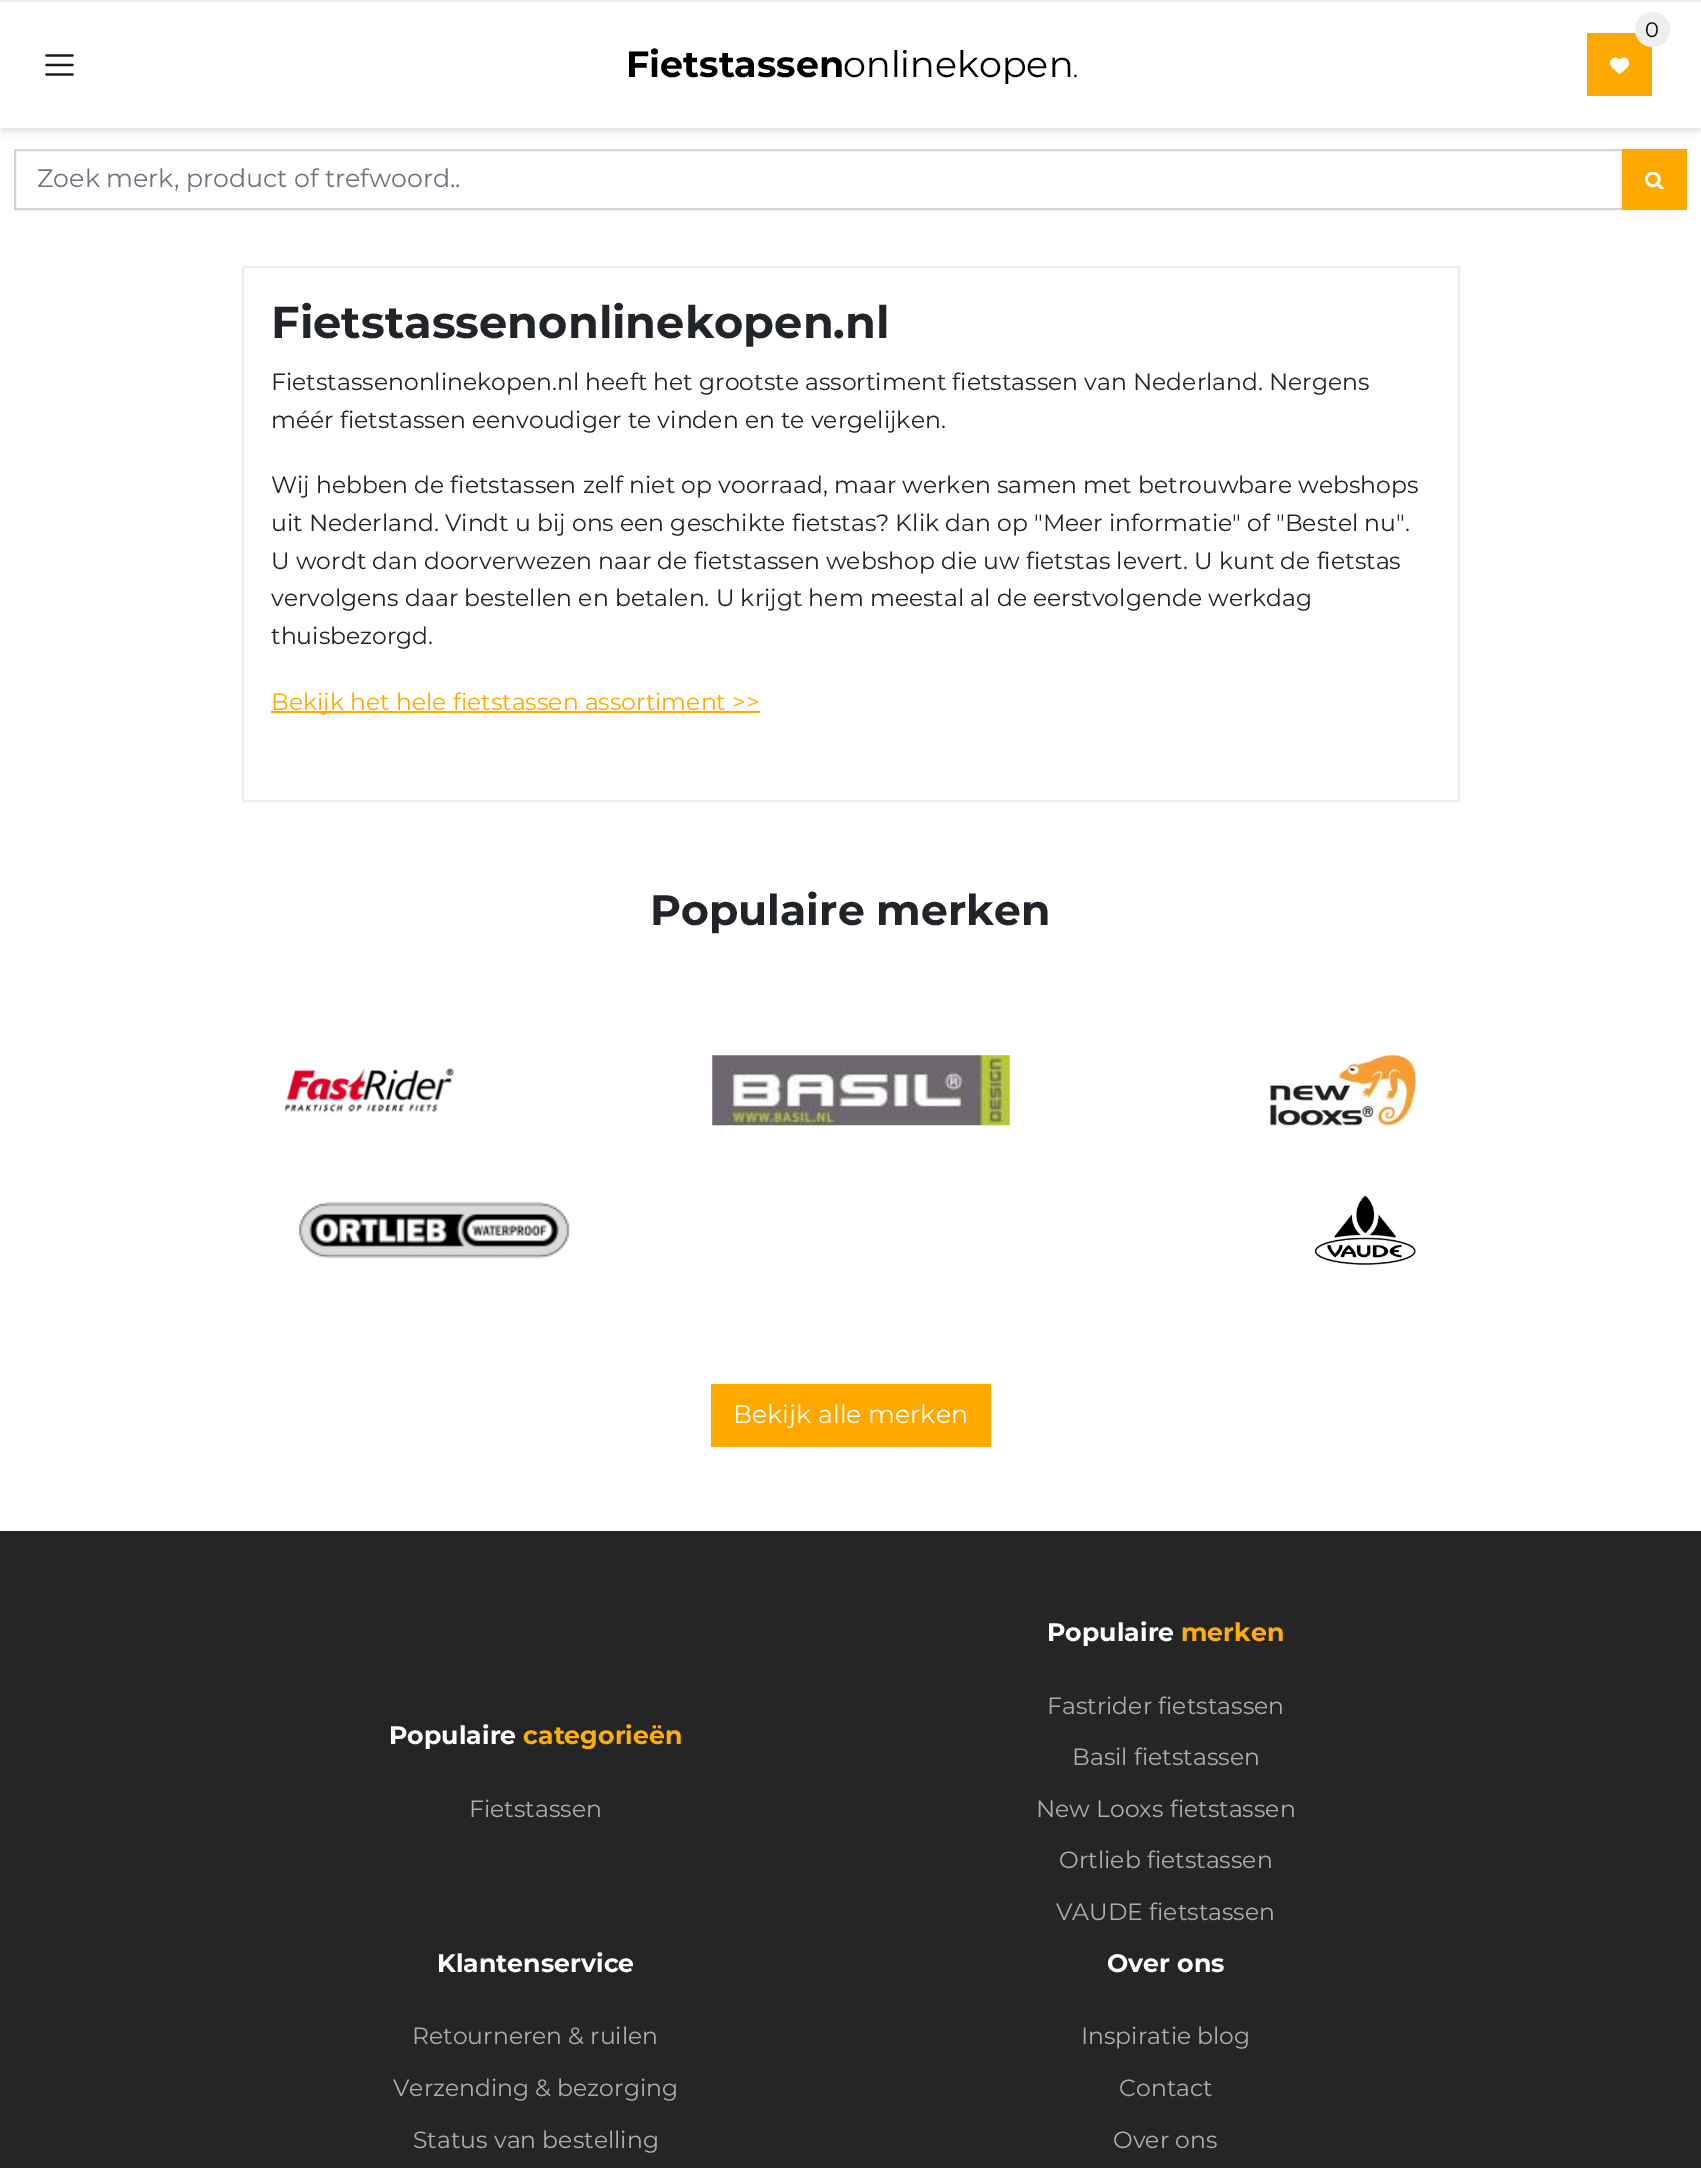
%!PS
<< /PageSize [1701 2168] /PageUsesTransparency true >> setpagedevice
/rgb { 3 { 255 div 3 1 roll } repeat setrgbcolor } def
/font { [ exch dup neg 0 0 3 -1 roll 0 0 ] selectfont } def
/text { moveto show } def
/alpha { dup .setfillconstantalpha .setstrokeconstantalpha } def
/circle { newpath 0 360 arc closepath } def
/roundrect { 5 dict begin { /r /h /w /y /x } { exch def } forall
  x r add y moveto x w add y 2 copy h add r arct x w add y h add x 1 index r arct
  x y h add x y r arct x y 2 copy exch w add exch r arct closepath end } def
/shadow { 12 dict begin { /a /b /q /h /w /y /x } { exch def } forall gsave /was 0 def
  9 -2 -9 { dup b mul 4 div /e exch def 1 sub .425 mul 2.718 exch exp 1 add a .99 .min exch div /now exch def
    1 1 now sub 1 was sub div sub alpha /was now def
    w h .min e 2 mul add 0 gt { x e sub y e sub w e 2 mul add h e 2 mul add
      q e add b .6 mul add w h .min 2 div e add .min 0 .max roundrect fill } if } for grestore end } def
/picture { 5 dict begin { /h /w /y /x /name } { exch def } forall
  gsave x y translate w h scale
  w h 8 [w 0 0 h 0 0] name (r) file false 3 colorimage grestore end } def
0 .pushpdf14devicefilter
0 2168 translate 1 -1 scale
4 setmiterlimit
255 255 255 rgb
0 0 1701 2168 rectfill
0 0 0 rgb
2 5 1697 125 0 4.5 0.15 shadow
255 255 255 rgb
0 2 1701 126 rectfill
238 238 238 rgb
0 0 1701 2 rectfill
255 168 0 rgb
1587 33 65 63 rectfill
238 238 238 rgb
1652.5 29.5 17.5 circle fill
(img_01.rgb) 1610 57 19 17 picture
26 26 26 rgb
2.3 setlinewidth
1 setlinecap
46.5 55.5 moveto 26 0 rlineto 46.5 65 moveto 26 0 rlineto 46.5 74.5 moveto 26 0 rlineto stroke
206 212 218 rgb
2 setlinewidth
0 setlinecap
15 150 1608 59 rectstroke
255 168 0 rgb
1622 149 65 61 rectfill
(img_02.rgb) 1645 172 19 17 picture
238 238 238 rgb
243 267 1216 534 rectstroke
255 168 0 rgb
271 711 489 2 rectfill
(img_03.rgb) 285 1068 169 44 picture
(img_04.rgb) 712 1055 298 71 picture
(img_05.rgb) 1270 1055 146 71 picture
(img_06.rgb) 298 1202 272 57 picture
(img_07.rgb) 1314 1195 102 71 picture
711 1384 280 63 rectfill
37 37 37 rgb
0 1531 1701 637 rectfill
/Montserrat-Regular 21 font
0 0 0 rgb
(0) 1645 37 text
/Montserrat-Bold 36.5 font
(Fietstassen) 626 77 text
/Montserrat-Regular 36.5 font
(onlinekopen) 843 77 text
/Montserrat-Regular 23.5 font
(.) 1073 77 text
/Montserrat-Regular 25.25 font
108 117 125 rgb
(Zoek merk, product of trefwoord..) 37 187 text
/Montserrat-Bold 44.75 font
33 37 41 rgb
(Fietstassenonlinekopen.nl) 271 338 text
/Montserrat-Regular 23.5 font
(Fietstassenonlinekopen.nl heeft het grootste assortiment fietstassen van Nederland. Nergens) 271 390 text
(méér fietstassen eenvoudiger te vinden en te vergelijken.) 271 428 text
(Wij hebben de fietstassen zelf niet op voorraad, maar werken samen met betrouwbare webshops) 271 493 text
(uit Nederland. Vindt u bij ons een geschikte fietstas? Klik dan op "Meer informatie" of "Bestel nu".) 271 531 text
(U wordt dan doorverwezen naar de fietstassen webshop die uw fietstas levert. U kunt de fietstas) 271 569 text
(vervolgens daar bestellen en betalen. U krijgt hem meestal al de eerstvolgende werkdag) 271 606 text
(thuisbezorgd.) 271 644 text
255 168 0 rgb
(Bekijk het hele fietstassen assortiment >>) 271 710 text
/Montserrat-Bold 42.5 font
33 37 41 rgb
(Populaire merken) 650 925 text
/Montserrat-Regular 25.25 font
255 255 255 rgb
(Bekijk alle merken) 733 1423 text
/Montserrat-Bold 25.25 font
(Populaire) 389 1744 text
255 174 6 rgb
(categorieën) 523 1744 text
/Montserrat-Regular 23.5 font
172 172 172 rgb
(Fietstassen) 469 1817 text
/Montserrat-Bold 25.25 font
255 255 255 rgb
(Populaire) 1047 1641 text
255 174 6 rgb
(merken) 1181 1641 text
/Montserrat-Regular 23.5 font
172 172 172 rgb
(Fastrider fietstassen) 1047 1714 text
(Basil fietstassen) 1072 1765 text
(New Looxs fietstassen) 1036 1817 text
(Ortlieb fietstassen) 1059 1868 text
(VAUDE fietstassen) 1056 1920 text
/Montserrat-Bold 25.25 font
255 255 255 rgb
(Klantenservice) 437 1972 text
/Montserrat-Regular 23.5 font
172 172 172 rgb
(Retourneren & ruilen) 412 2044 text
(Verzending & bezorging) 393 2096 text
(Status van bestelling) 413 2148 text
/Montserrat-Bold 25.25 font
255 255 255 rgb
(Over ons) 1107 1972 text
/Montserrat-Regular 23.5 font
172 172 172 rgb
(Inspiratie blog) 1081 2044 text
(Contact) 1119 2096 text
(Over ons) 1113 2148 text
.poppdf14devicefilter showpage
